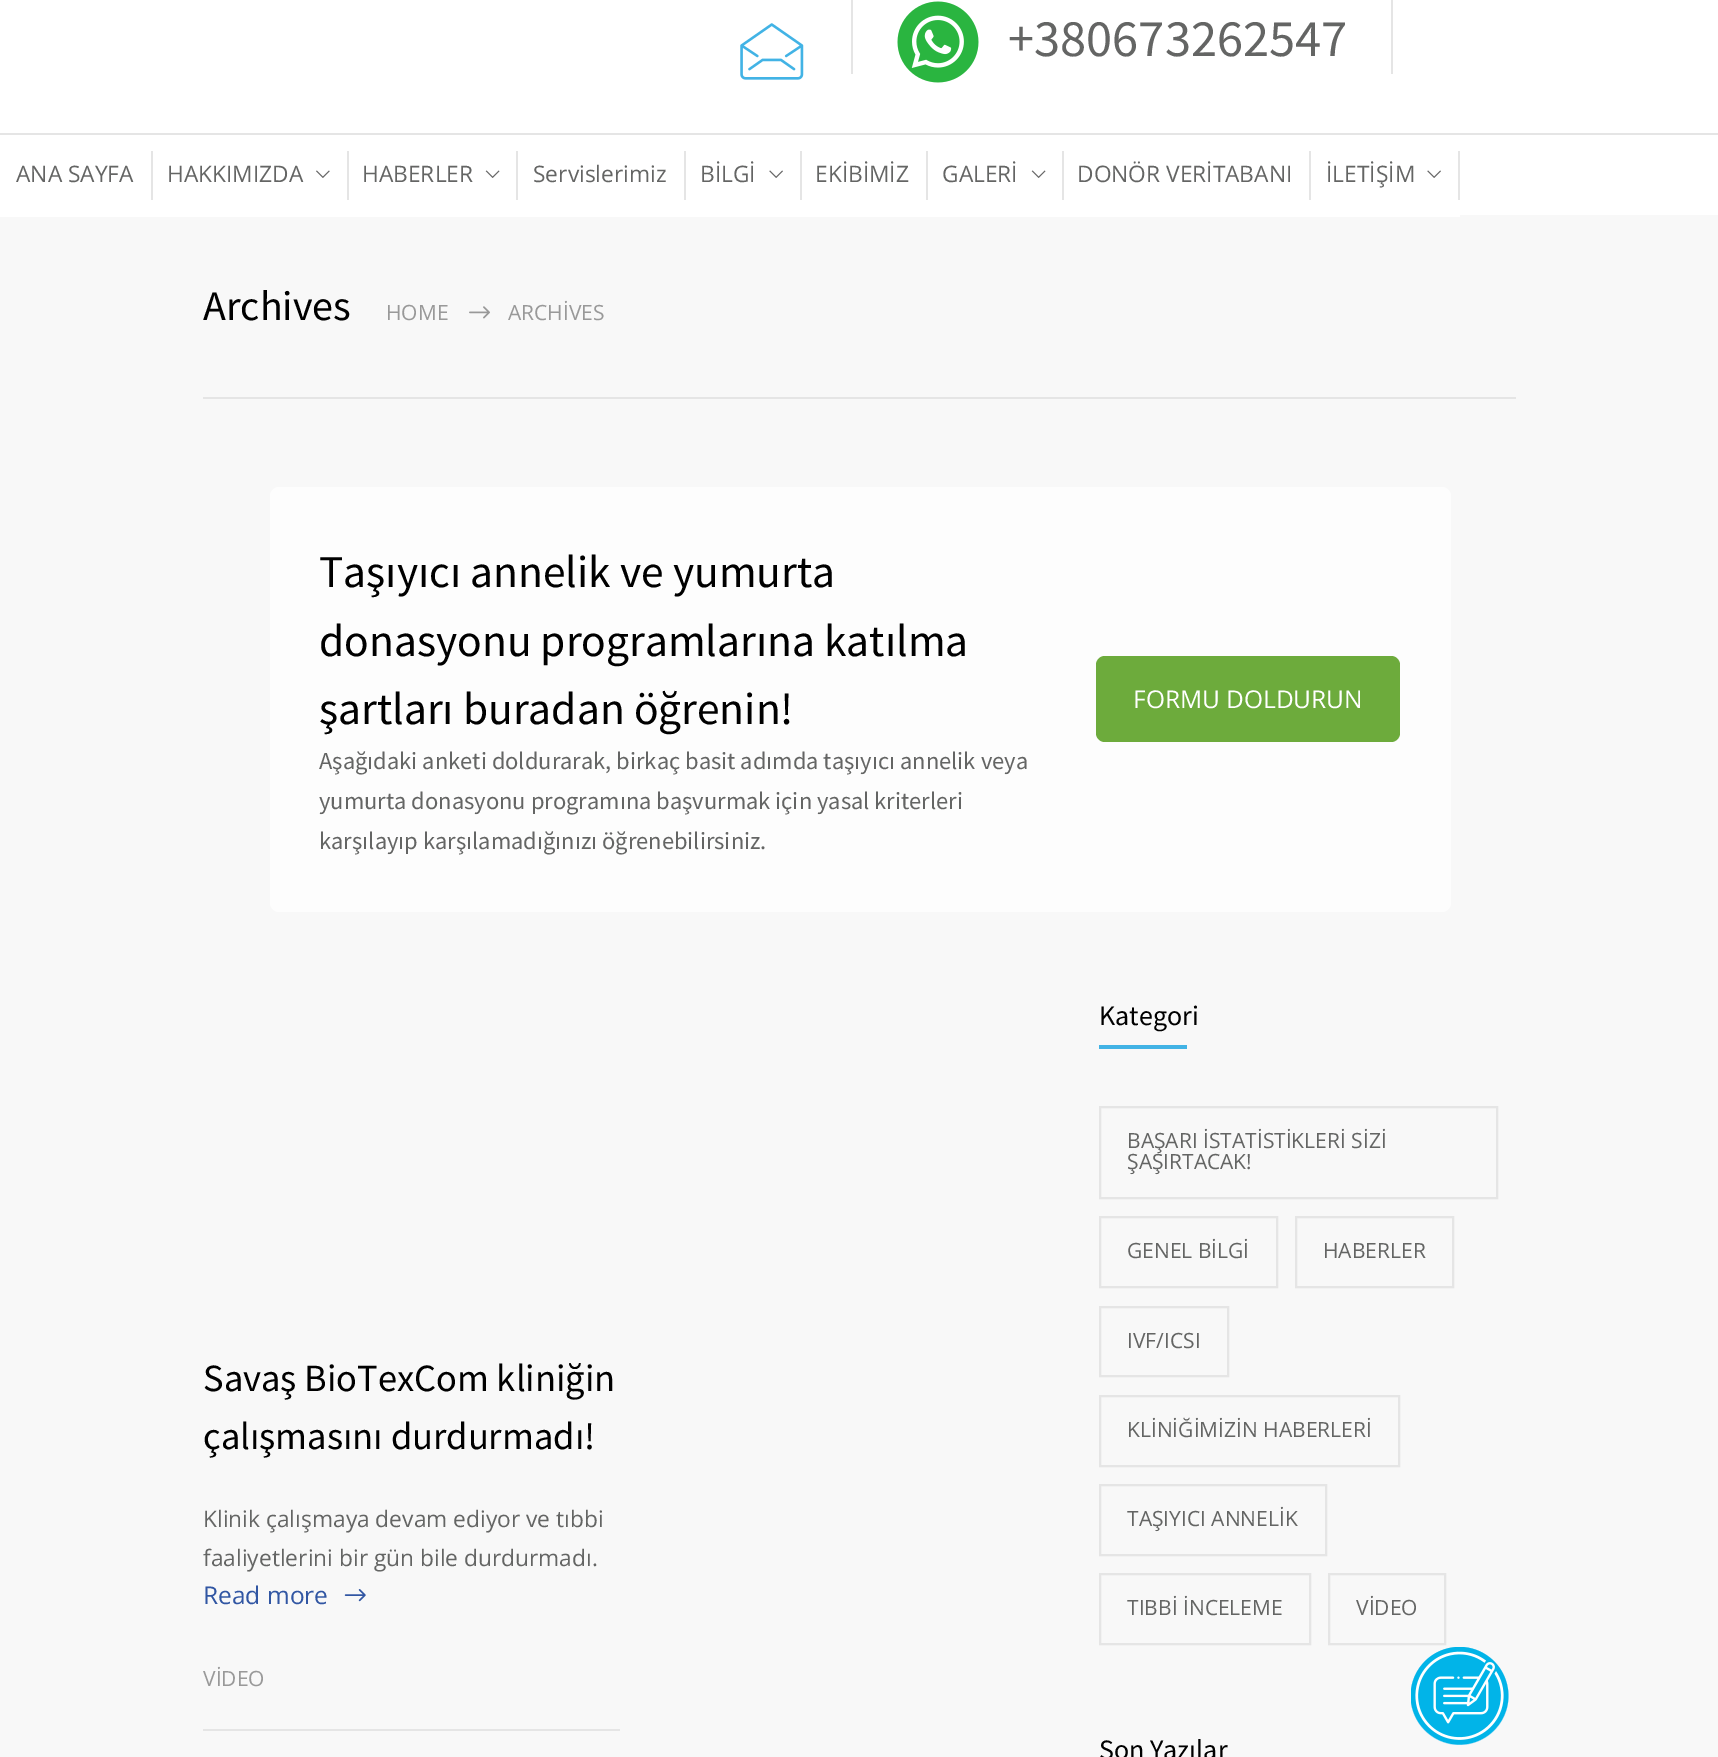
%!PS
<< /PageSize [1718 1757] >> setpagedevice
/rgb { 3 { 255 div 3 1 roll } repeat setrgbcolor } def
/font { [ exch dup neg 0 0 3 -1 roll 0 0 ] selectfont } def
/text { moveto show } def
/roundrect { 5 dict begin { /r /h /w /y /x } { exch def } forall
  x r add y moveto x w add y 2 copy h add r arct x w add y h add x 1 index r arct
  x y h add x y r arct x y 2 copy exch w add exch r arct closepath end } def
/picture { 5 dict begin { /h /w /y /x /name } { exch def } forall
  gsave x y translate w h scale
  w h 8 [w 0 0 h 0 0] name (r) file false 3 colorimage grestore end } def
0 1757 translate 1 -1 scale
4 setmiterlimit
248 248 248 rgb
0 0 1718 1757 rectfill
255 255 255 rgb
0 0 1718 133 rectfill
(img_01.rgb) 740 23 64 57 picture
229 229 229 rgb
851 0 2 74 rectfill
(img_02.rgb) 897 1 82 82 picture
1391 0 2 74 rectfill
0 133 1718 2 rectfill
255 255 255 rgb
1460 135 258 80 rectfill
0 135 1460 82 rectfill
229 229 229 rgb
151 151 2 49 rectfill
(img_03.rgb) 316 170 14 8 picture
347 151 2 49 rectfill
(img_04.rgb) 485 170 15 8 picture
516 151 2 49 rectfill
684 151 2 49 rectfill
(img_05.rgb) 769 170 14 8 picture
800 151 2 49 rectfill
926 151 2 49 rectfill
(img_04.rgb) 1031 170 15 8 picture
1062 151 2 49 rectfill
1309 151 2 49 rectfill
(img_05.rgb) 1427 170 14 8 picture
1458 151 2 49 rectfill
203 397 1313 2 rectfill
(img_06.rgb) 469 306 21 13 picture
253 253 253 rgb
270 487 1181 425 9 roundrect fill
109 171 60 rgb
1096 656 304 86 9 roundrect fill
229 229 229 rgb
203 1729 417 2 rectfill
(img_07.rgb) 344 1589 22 13 picture
66 179 229 rgb
1099 1045 88 4 rectfill
229 229 229 rgb
2 setlinewidth
1100 1107 397 91 rectstroke
1100 1217 177 70 rectstroke
1296 1217 157 70 rectstroke
1100 1307 128 69 rectstroke
1100 1396 299 70 rectstroke
1100 1485 226 70 rectstroke
1100 1574 210 70 rectstroke
1329 1574 116 70 rectstroke
(img_08.rgb) 1411 1647 98 98 picture
/SourceSansPro-Regular 52.5 font
100 101 100 rgb
(+380673262547) 1008 56 text
/OpenSans-Regular 22.75 font
(ANA SAYFA) 16 182 text
(HAKKIMIZDA) 167 182 text
(HABERLER) 362 182 text
(Servislerimiz) 533 182 text
(BİLGİ) 700 182 text
(EKİBİMİZ) 815 182 text
(GALERİ) 942 182 text
(DONÖR VERİTABANI) 1077 182 text
(İLETİŞİM) 1326 182 text
/SourceSansPro-Regular 42 font
0 0 0 rgb
(Archives) 203 320 text
/OpenSans-Regular 21 font
153 153 153 rgb
(HOME) 386 320 text
(ARCHİVES) 508 320 text
/SourceSansPro-Regular 45.5 font
0 0 0 rgb
(Taşıyıcı annelik ve yumurta) 319 587 text
(donasyonu programlarına katılma) 319 656 text
(şartları buradan öğrenin!) 319 724 text
/SourceSansPro-Regular 24.5 font
100 101 100 rgb
(Aşağıdaki anketi doldurarak, birkaç basit adımda taşıyıcı annelik veya) 319 769 text
(yumurta donasyonu programına başvurmak için yasal kriterleri) 319 809 text
(karşılayıp karşılamadığınızı öğrenebilirsiniz.) 319 849 text
/OpenSans-Regular 24.5 font
255 255 255 rgb
(FORMU DOLDURUN) 1133 708 text
/SourceSansPro-Regular 38.5 font
0 0 0 rgb
(Savaş BioTexCom kliniğin) 203 1391 text
(çalışmasını durdurmadı!) 203 1449 text
/OpenSans-Regular 22.75 font
100 101 100 rgb
(Klinik çalışmaya devam ediyor ve tıbbi) 203 1527 text
(faaliyetlerini bir gün bile durdurmadı.) 203 1566 text
/OpenSans-Regular 24.5 font
49 86 163 rgb
(Read more) 203 1604 text
/OpenSans-Regular 21 font
153 153 153 rgb
(VİDEO) 203 1686 text
/SourceSansPro-Regular 28 font
0 0 0 rgb
(Kategori) 1099 1025 text
/OpenSans-Regular 21 font
100 101 100 rgb
(BAŞARI İSTATİSTİKLERİ SİZİ) 1127 1148 text
(ŞAŞIRTACAK!) 1127 1169 text
(GENEL BİLGİ) 1127 1258 text
(HABERLER) 1323 1258 text
(IVF/ICSI) 1127 1348 text
(KLİNİĞİMİZİN HABERLERİ) 1127 1437 text
(TAŞIYICI ANNELİK) 1127 1526 text
(TIBBİ İNCELEME) 1127 1615 text
(VİDEO) 1356 1615 text
/SourceSansPro-Regular 28 font
0 0 0 rgb
(Son Yazılar) 1099 1759 text
showpage
